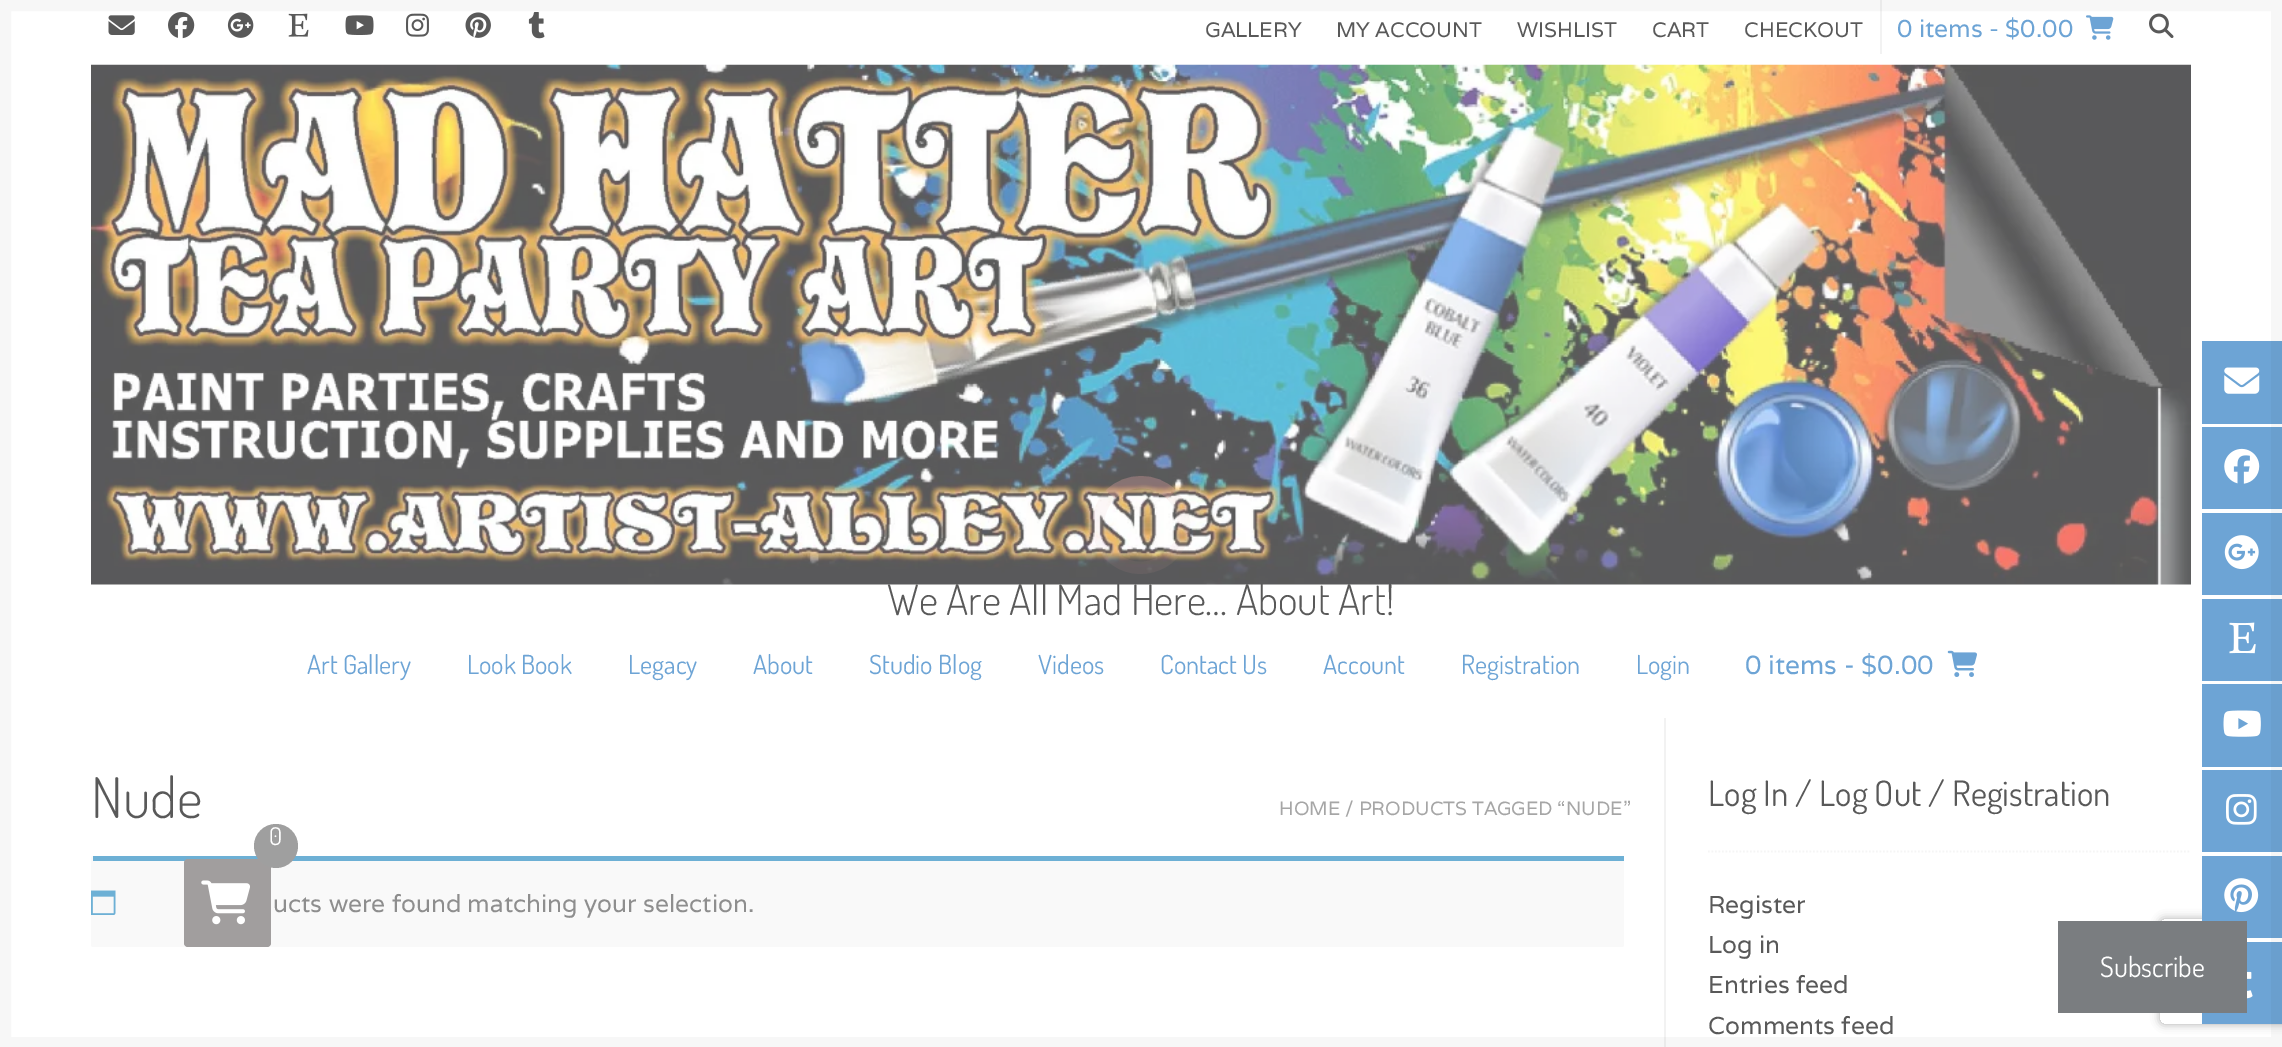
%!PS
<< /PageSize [2282 1047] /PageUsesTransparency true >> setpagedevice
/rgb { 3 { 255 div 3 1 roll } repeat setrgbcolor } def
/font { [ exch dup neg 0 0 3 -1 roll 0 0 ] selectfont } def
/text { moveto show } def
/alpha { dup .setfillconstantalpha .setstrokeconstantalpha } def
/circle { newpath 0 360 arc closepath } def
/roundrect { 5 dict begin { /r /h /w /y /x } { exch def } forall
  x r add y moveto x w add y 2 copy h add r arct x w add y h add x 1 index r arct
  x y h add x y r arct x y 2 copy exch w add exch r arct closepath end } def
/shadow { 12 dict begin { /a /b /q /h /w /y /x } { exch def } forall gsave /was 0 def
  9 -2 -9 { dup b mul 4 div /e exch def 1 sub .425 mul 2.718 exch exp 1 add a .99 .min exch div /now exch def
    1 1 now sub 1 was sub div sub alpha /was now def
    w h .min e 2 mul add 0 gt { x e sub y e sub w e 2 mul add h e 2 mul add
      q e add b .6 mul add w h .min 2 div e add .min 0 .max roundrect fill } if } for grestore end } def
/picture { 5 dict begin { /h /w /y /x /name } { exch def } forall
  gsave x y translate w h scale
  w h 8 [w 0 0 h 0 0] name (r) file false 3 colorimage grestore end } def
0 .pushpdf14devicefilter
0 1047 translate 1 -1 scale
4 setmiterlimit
255 255 255 rgb
0 0 2282 1047 rectfill
(img_01.rgb) 108 15 27 20 picture
(img_02.rgb) 168 12 27 27 picture
(img_03.rgb) 227 12 27 26 picture
(img_04.rgb) 288 13 21 24 picture
(img_05.rgb) 345 15 29 20 picture
(img_06.rgb) 406 13 23 24 picture
(img_07.rgb) 465 12 26 26 picture
(img_08.rgb) 528 12 17 27 picture
242 242 242 rgb
1880 0 2 54 rectfill
(img_09.rgb) 2086 15 28 25 picture
(img_10.rgb) 2149 13 25 25 picture
(img_11.rgb) 91 64 2100 521 picture
(img_12.rgb) 1947 650 30 27 picture
1664 718 2 329 rectfill
249 249 249 rgb
91 856 1533 91 2 roundrect fill
109 176 213 rgb
93 856 1531 5 rectfill
(img_13.rgb) 91 890 25 25 picture
245 245 245 rgb
1.8 setlinewidth
[1.75 1.75] 0 setdash
1708 851.5 moveto 483 0 rlineto stroke
109 164 213 rgb
2202 341 80 83 rectfill
(img_14.rgb) 2224 367 36 27 picture
2202 427 80 82 rectfill
(img_15.rgb) 2224 448 36 36 picture
2202 513 80 82 rectfill
(img_16.rgb) 2224 535 35 35 picture
2202 599 80 82 rectfill
(img_17.rgb) 2229 622 27 32 picture
2202 684 80 83 rectfill
(img_18.rgb) 2223 710 38 27 picture
2202 770 80 82 rectfill
(img_19.rgb) 2226 794 31 31 picture
gsave
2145 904 moveto 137 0 rlineto 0 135 rlineto -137 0 rlineto closepath 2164 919 moveto 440 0 rlineto 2 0 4 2 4 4 rcurveto 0 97 rlineto 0 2 -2 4 -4 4 rcurveto -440 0 rlineto -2 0 -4 -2 -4 -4 rcurveto 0 -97 rlineto 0 -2 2 -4 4 -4 rcurveto closepath eoclip newpath
172 172 172 rgb
2160 919 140 105 4 4.5 1 shadow
grestore
2202 856 80 82 rectfill
(img_20.rgb) 2224 878 35 35 picture
2202 942 80 82 rectfill
(img_21.rgb) 2247 971 6 28 picture
161 158 158 rgb
184 859 87 88 4 roundrect fill
159 159 159 rgb
276 846 22 circle fill
(img_22.rgb) 201 880 49 45 picture
122 125 128 rgb
2058 921 189 92 rectfill
0.03 alpha
0 0 0 rgb
11 setlinewidth
[] 0 setdash
5.5 5.5 2271 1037 rectstroke
0.35 alpha
221 161 161 rgb
12.2 setlinewidth
1110.5 494.5 moveto 16.5 -16.5 44.5 -16.5 61 0 rcurveto stroke
0.09 alpha
1171.5 494.5 moveto 8 8 12.5 19 12.5 30.5 rcurveto 0 38 -46.5 57 -73.5 30.5 rcurveto -6 -6 -10 -14 -11.5 -22 rcurveto -3 -14 1.5 -29 11.5 -39 rcurveto stroke
/Varela-Regular 21 font
1 alpha
89 89 89 rgb
(GALLERY) 1205 37 text
(MY ACCOUNT) 1336 37 text
(WISHLIST) 1517 37 text
(CART) 1652 37 text
(CHECKOUT) 1744 37 text
/Varela-Regular 24.5 font
109 164 213 rgb
(0 items - $0.00) 1897 37 text
/Dosis-Light 42 font
89 89 89 rgb
(We Are All Mad Here… About Art!) 887 615 text
/Dosis-Regular 26.25 font
109 164 213 rgb
(Art Gallery) 307 674 text
(Look Book) 467 674 text
(Legacy) 628 674 text
(About) 753 674 text
(Studio Blog) 869 674 text
(Videos) 1038 674 text
(Contact Us) 1160 674 text
(Account) 1323 674 text
(Registration) 1461 674 text
(Login) 1636 674 text
/Varela-Regular 26.25 font
(0 items - $0.00) 1745 674 text
/Dosis-Light 56 font
89 89 89 rgb
(Nude) 91 818 text
/Varela-Regular 19.25 font
166 166 166 rgb
(HOME) 1279 815 text
(/ PRODUCTS TAGGED “NUDE”) 1345 815 text
/Varela-Regular 24.5 font
142 142 142 rgb
(ucts were found matching your selection.) 273 912 text
/Dosis-Regular 35 font
89 89 89 rgb
(Log In / Log Out / Registration) 1708 806 text
/Varela-Regular 24.5 font
(Register) 1708 913 text
(Log in) 1708 953 text
(Entries feed) 1708 993 text
(Comments feed) 1708 1034 text
/Dosis-Regular 24.5 font
255 255 255 rgb
(0) 269 845 text
/Dosis-Regular 28 font
(Subscribe) 2100 977 text
.poppdf14devicefilter showpage
